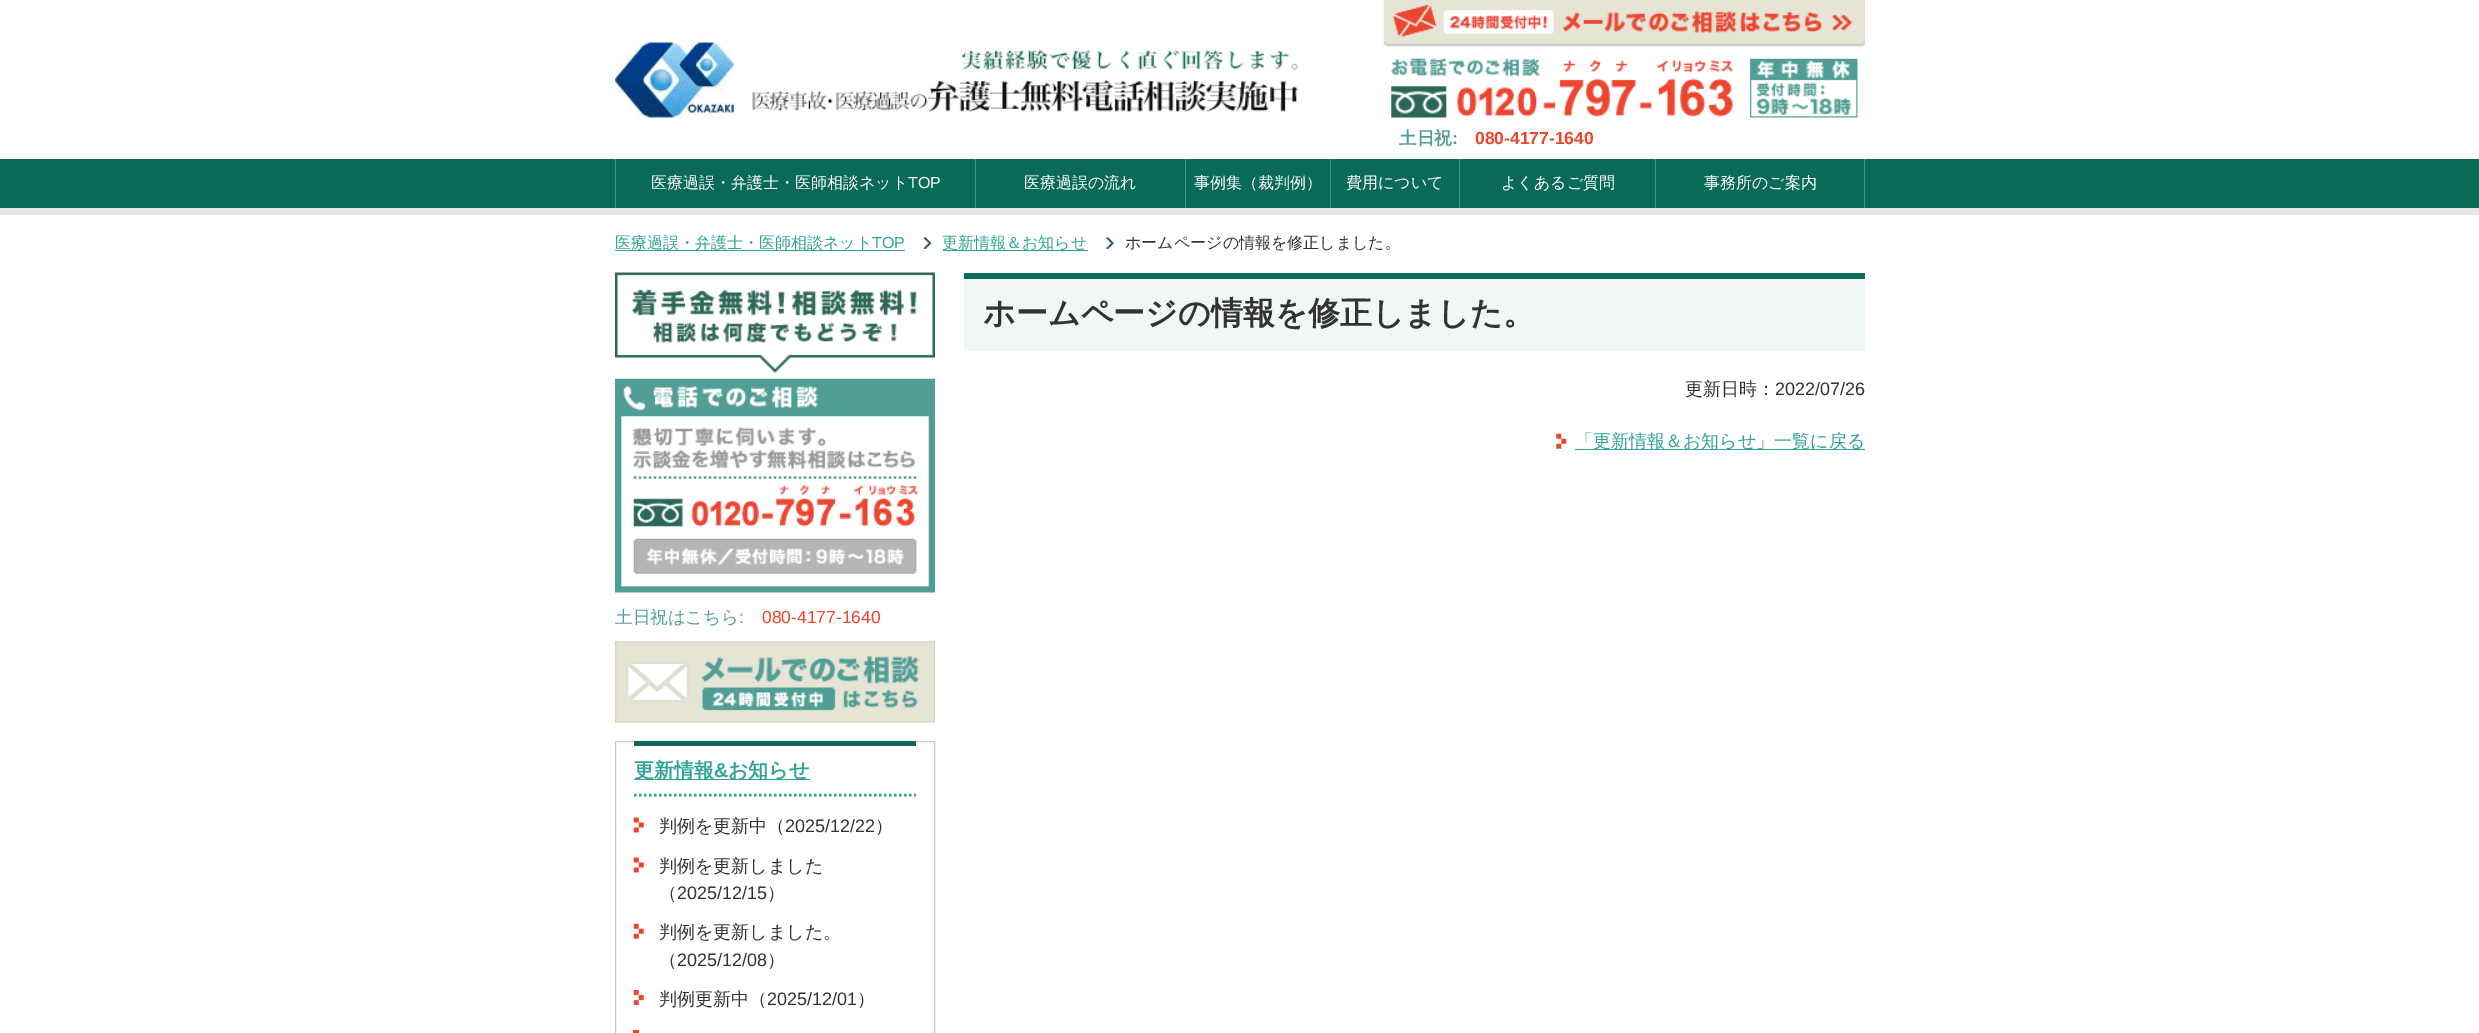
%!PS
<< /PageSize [2479 1033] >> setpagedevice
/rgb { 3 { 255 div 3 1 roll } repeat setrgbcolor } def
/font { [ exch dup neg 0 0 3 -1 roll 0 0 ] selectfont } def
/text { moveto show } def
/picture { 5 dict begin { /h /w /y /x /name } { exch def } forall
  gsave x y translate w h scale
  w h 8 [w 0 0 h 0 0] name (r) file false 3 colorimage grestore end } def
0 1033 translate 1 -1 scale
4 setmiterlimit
255 255 255 rgb
0 0 2479 1033 rectfill
(img_01.rgb) 615 42 683 76 picture
(img_02.rgb) 1383 0 482 47 picture
(img_03.rgb) 1391 58 467 60 picture
10 106 88 rgb
0 159 2479 49 rectfill
228 229 229 rgb
0 208 2479 7 rectfill
72 144 136 rgb
615 159 1 49 rectfill
975 159 1 49 rectfill
1185 159 1 49 rectfill
1330 159 1 49 rectfill
1459 159 1 49 rectfill
1655 159 1 49 rectfill
1864 159 1 49 rectfill
48 163 152 rgb
615 250 290 1 rectfill
(img_04.rgb) 923 237 9 12 picture
943 250 145 1 rectfill
(img_05.rgb) 1106 237 8 12 picture
241 246 246 rgb
964 279 901 72 rectfill
10 106 88 rgb
964 273 901 6 rectfill
(img_06.rgb) 1556 433 11 16 picture
48 163 152 rgb
1575 449 290 1 rectfill
(img_07.rgb) 615 272 320 101 picture
(img_08.rgb) 615 378 320 215 picture
(img_09.rgb) 615 641 320 82 picture
204 204 204 rgb
615.5 741.5 319 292 rectstroke
10 106 88 rgb
634 741 282 5 rectfill
48 163 152 rgb
2.5 setlinewidth
[2.5 2.5] 0 setdash
634 795 moveto 282 0 rlineto stroke
634 779 176 1 rectfill
(img_10.rgb) 633 817 11 16 picture
(img_10.rgb) 633 857 11 16 picture
(img_11.rgb) 633 923 11 16 picture
(img_12.rgb) 633 990 11 15 picture
237 70 47 rgb
633 1030 6 3 rectfill
/WenQuanYiZenHei-Bold 17.5 font
81 158 150 rgb
(土日祝) 1399 144 text
/LiberationSans-Bold 17.5 font
(:) 1452 144 text
237 70 47 rgb
(080-4177-1640) 1475 144 text
/WenQuanYiZenHei-Medium 16 font
255 255 255 rgb
(医療過誤・弁護士・医師相談ネット) 651 188 text
/LiberationSans-Regular 16 font
(TOP) 908 188 text
/WenQuanYiZenHei-Medium 16 font
(医療過誤の流れ) 1024 188 text
(事例集（裁判例）) 1194 188 text
(費用について) 1346 188 text
(よくあるご質問) 1501 188 text
(事務所のご案内) 1704 188 text
48 163 152 rgb
(医療過誤・弁護士・医師相談ネット) 615 248 text
/LiberationSans-Regular 16 font
(TOP) 872 248 text
/WenQuanYiZenHei-Medium 16 font
(更新情報＆お知らせ) 942 248 text
51 51 51 rgb
(ホームページの情報を修正しました。) 1125 248 text
/WenQuanYiZenHei-Bold 32 font
(ホームページの情報を修正しました。) 983 324 text
/WenQuanYiZenHei-Medium 18 font
(更新日時：) 1685 395 text
/LiberationSans-Regular 18 font
(2022/07/26) 1775 395 text
/WenQuanYiZenHei-Medium 18 font
48 163 152 rgb
(「更新情報＆お知らせ」一覧に戻る) 1575 447 text
/WenQuanYiZenHei-Medium 17.5 font
81 158 150 rgb
(土日祝はこちら) 615 623 text
/LiberationSans-Regular 17.5 font
(:) 739 623 text
237 70 47 rgb
(080-4177-1640) 762 623 text
/WenQuanYiZenHei-Bold 20 font
48 163 152 rgb
(更新情報) 634 777 text
/LiberationSans-Bold 20 font
(&) 714 777 text
/WenQuanYiZenHei-Bold 20 font
(お知らせ) 728 777 text
/WenQuanYiZenHei-Medium 18 font
51 51 51 rgb
(判例を更新中（) 659 832 text
/LiberationSans-Regular 18 font
(2025/12/22) 785 832 text
/WenQuanYiZenHei-Medium 18 font
(）) 875 832 text
(判例を更新しました) 659 872 text
(（) 659 899 text
/LiberationSans-Regular 18 font
(2025/12/15) 677 899 text
/WenQuanYiZenHei-Medium 18 font
(）) 767 899 text
(判例を更新しました。) 659 938 text
(（) 659 966 text
/LiberationSans-Regular 18 font
(2025/12/08) 677 966 text
/WenQuanYiZenHei-Medium 18 font
(）) 767 966 text
(判例更新中（) 659 1005 text
/LiberationSans-Regular 18 font
(2025/12/01) 767 1005 text
/WenQuanYiZenHei-Medium 18 font
(）) 857 1005 text
showpage
